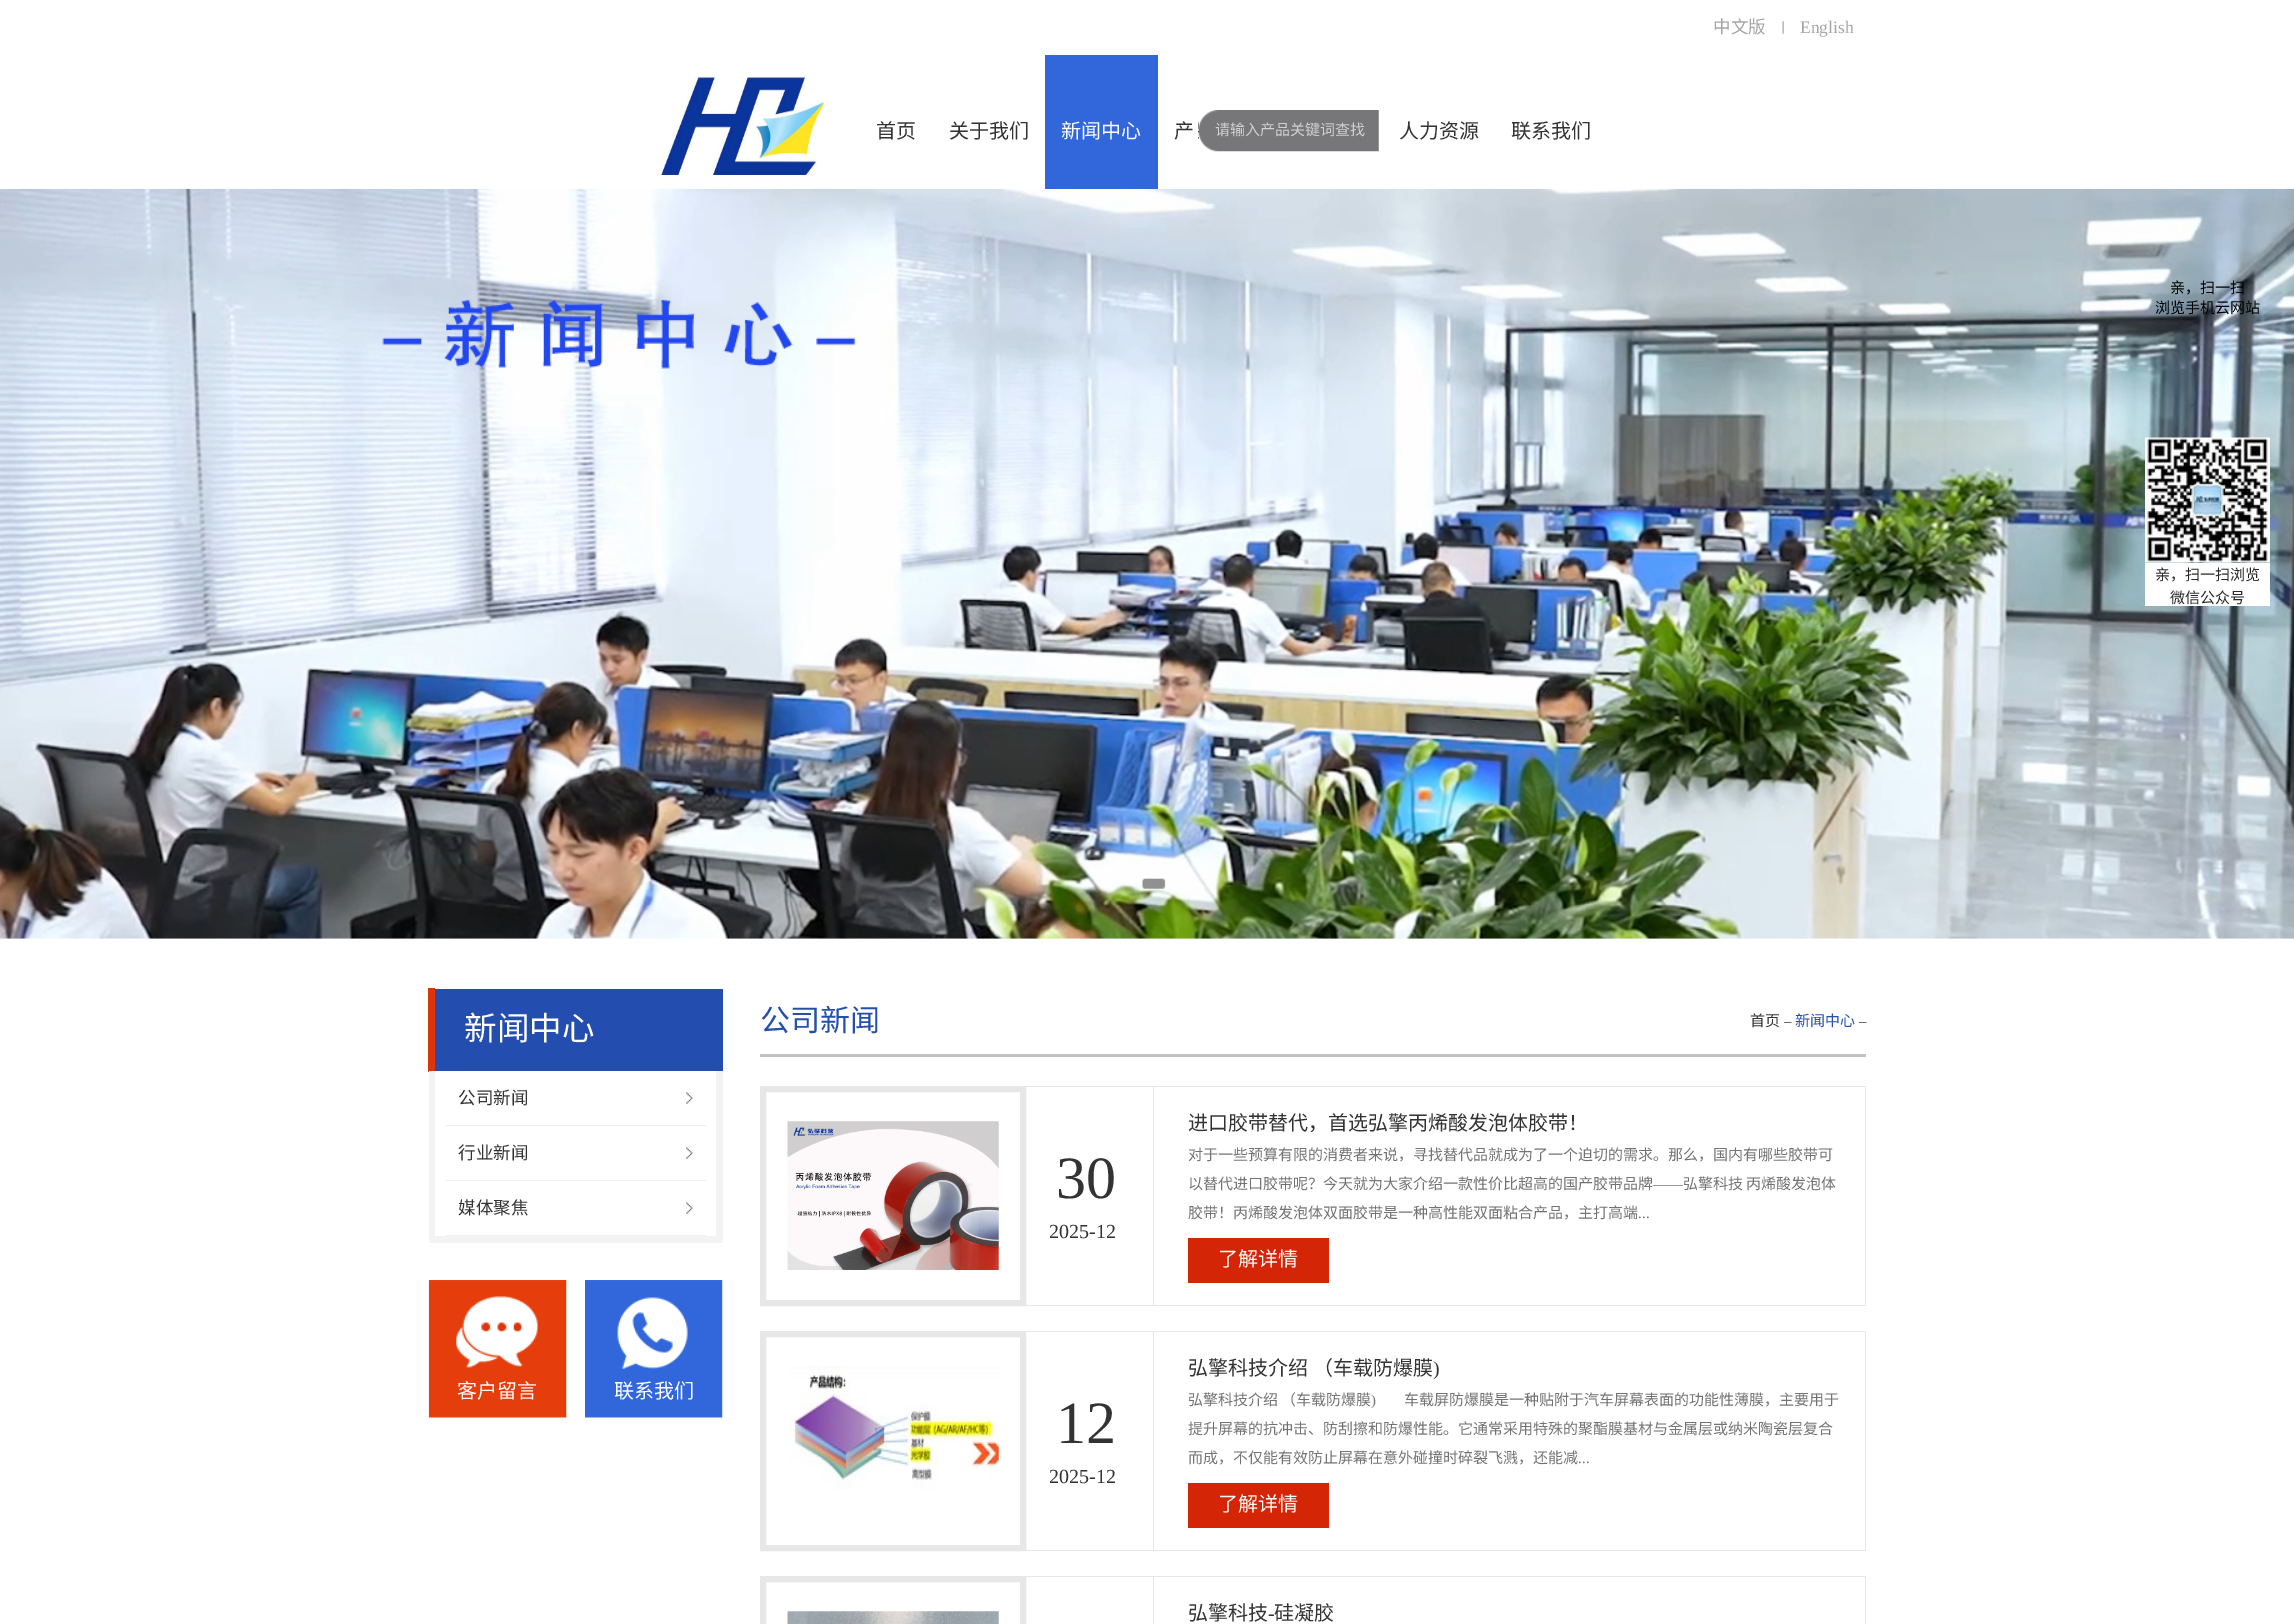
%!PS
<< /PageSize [2294 1624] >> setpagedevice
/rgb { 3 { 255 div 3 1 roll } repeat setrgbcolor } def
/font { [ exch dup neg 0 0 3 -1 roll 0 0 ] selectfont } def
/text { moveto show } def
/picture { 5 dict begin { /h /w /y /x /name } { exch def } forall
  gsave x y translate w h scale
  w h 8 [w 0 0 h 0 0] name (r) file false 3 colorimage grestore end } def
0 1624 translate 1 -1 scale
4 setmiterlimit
255 255 255 rgb
0 0 2294 1624 rectfill
(img_01.rgb) 1782 21 2 13 picture
(img_02.rgb) 661 77 163 98 picture
(img_03.rgb) 1198 110 181 42 picture
(img_04.rgb) 0 188 2294 751 picture
49 103 219 rgb
1045 55 113 134 rectfill
(img_05.rgb) 1142 878 24 11 picture
(img_06.rgb) 2145 437 125 126 picture
255 255 255 rgb
2145 563 125 43 rectfill
35 78 176 rgb
435 989 288 82 rectfill
221 53 9 rgb
428 988 7 84 rectfill
243 243 243 rgb
716 1071 7 172 rectfill
429 1236 294 7 rectfill
429 1071 6 172 rectfill
239 239 239 rgb
446 1125 260 1 rectfill
(img_07.rgb) 686 1092 7 12 picture
446 1180 260 1 rectfill
(img_07.rgb) 686 1147 7 12 picture
446 1235 260 1 rectfill
(img_07.rgb) 686 1202 7 12 picture
(img_08.rgb) 428 1280 139 138 picture
(img_09.rgb) 585 1280 138 138 picture
194 194 194 rgb
760 1054 1106 3 rectfill
231 231 231 rgb
6 setlinewidth
763 1089 260 214 rectstroke
(img_10.rgb) 787 1121 212 149 picture
1026 1086 840 1 rectfill
1865 1086 1 142 rectfill
1153 1086 1 220 rectfill
1026 1305 128 1 rectfill
1865 1228 1 78 rectfill
1154 1305 712 1 rectfill
212 38 6 rgb
1188 1238 141 45 rectfill
231 231 231 rgb
763 1334 260 214 rectstroke
(img_11.rgb) 789 1366 210 124 picture
1026 1331 840 1 rectfill
1865 1331 1 142 rectfill
1153 1331 1 220 rectfill
1026 1550 128 1 rectfill
1865 1473 1 78 rectfill
1154 1550 712 1 rectfill
212 38 6 rgb
1188 1483 141 45 rectfill
231 231 231 rgb
763 1579 260 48 rectstroke
(img_12.rgb) 787 1611 212 13 picture
1026 1576 840 1 rectfill
1153 1576 1 48 rectfill
1865 1576 1 48 rectfill
/NotoSansCJKSC-Regular 17.5 font
165 165 167 rgb
(中文版) 1713 33 text
/LiberationSerif-Regular 17.5 font
(English) 1800 33 text
/NotoSansCJKSC-Regular 15 font
209 209 209 rgb
(请输入产品关键词查找) 1215 135 text
/NotoSansCJKSC-Regular 20 font
51 51 51 rgb
(首页) 876 138 text
(关于我们) 949 138 text
255 255 255 rgb
(新闻中心) 1061 138 text
51 51 51 rgb
(产) 1174 138 text
(人力资源) 1399 138 text
(联系我们) 1511 138 text
/NotoSansCJKSC-Regular 15 font
0 0 0 rgb
(亲，扫一扫) 2170 293 text
(浏览手机云网站) 2155 313 text
40 40 40 rgb
(亲，扫一扫浏览) 2155 580 text
(微信公众号) 2170 603 text
/NotoSansCJKSC-Regular 32.5 font
255 255 255 rgb
(新闻中心) 464 1040 text
/NotoSansCJKSC-Regular 17.5 font
51 51 51 rgb
(公司新闻) 458 1104 text
(行业新闻) 458 1159 text
(媒体聚焦) 458 1214 text
/NotoSansCJKSC-Regular 20 font
255 255 255 rgb
(客户留言) 457 1398 text
(联系我们) 614 1398 text
/NotoSansCJKSC-Regular 30 font
36 79 171 rgb
(公司新闻) 760 1031 text
/NotoSansCJKSC-Regular 15 font
51 51 51 rgb
(首页) 1750 1026 text
/LiberationSerif-Regular 15 font
(–) 1784 1026 text
/NotoSansCJKSC-Regular 15 font
36 79 171 rgb
(新闻中心) 1795 1026 text
/LiberationSerif-Regular 15 font
51 51 51 rgb
(–) 1859 1026 text
/NotoSansCJKSC-Regular 20 font
(进口胶带替代，首选弘擎丙烯酸发泡体胶带！) 1188 1130 text
/LiberationSerif-Regular 60 font
(30) 1056 1198 text
/LiberationSerif-Regular 20 font
(2025-12) 1049 1238 text
/NotoSansCJKSC-Regular 15 font
115 115 115 rgb
(对于一些预算有限的消费者来说，寻找替代品就成为了一个迫切的需求。那么，国内有哪些胶带可) 1188 1160 text
(以替代进口胶带呢？今天就为大家介绍一款性价比超高的国产胶带品牌) 1188 1189 text
/LiberationSerif-Regular 15 font
(——) 1653 1189 text
/NotoSansCJKSC-Regular 15 font
(弘擎科技 丙烯酸发泡体) 1683 1189 text
(胶带！丙烯酸发泡体双面胶带是一种高性能双面粘合产品，主打高端) 1188 1218 text
/LiberationSerif-Regular 15 font
(...) 1638 1218 text
/NotoSansCJKSC-Regular 20 font
255 255 255 rgb
(了解详情) 1218 1266 text
51 51 51 rgb
1188 1375 moveto 1 0 32 (弘擎科技介绍 （车载防爆膜) widthshow
/LiberationSerif-Regular 20 font
(\)) 1433 1375 text
/LiberationSerif-Regular 60 font
(12) 1056 1443 text
/LiberationSerif-Regular 20 font
(2025-12) 1049 1483 text
/NotoSansCJKSC-Regular 15 font
115 115 115 rgb
(弘擎科技介绍 （车载防爆膜) 1188 1405 text
/LiberationSerif-Regular 15 font
(\)) 1371 1405 text
/NotoSansCJKSC-Regular 15 font
(车载屏防爆膜是一种贴附于汽车屏幕表面的功能性薄膜，主要用于) 1404 1405 text
(提升屏幕的抗冲击、防刮擦和防爆性能。它通常采用特殊的聚酯膜基材与金属层或纳米陶瓷层复合) 1188 1434 text
(而成，不仅能有效防止屏幕在意外碰撞时碎裂飞溅，还能减) 1188 1463 text
/LiberationSerif-Regular 15 font
(...) 1578 1463 text
/NotoSansCJKSC-Regular 20 font
255 255 255 rgb
(了解详情) 1218 1511 text
51 51 51 rgb
(弘擎科技) 1188 1620 text
/LiberationSerif-Regular 20 font
(-) 1268 1620 text
/NotoSansCJKSC-Regular 20 font
(硅凝胶) 1274 1620 text
showpage
